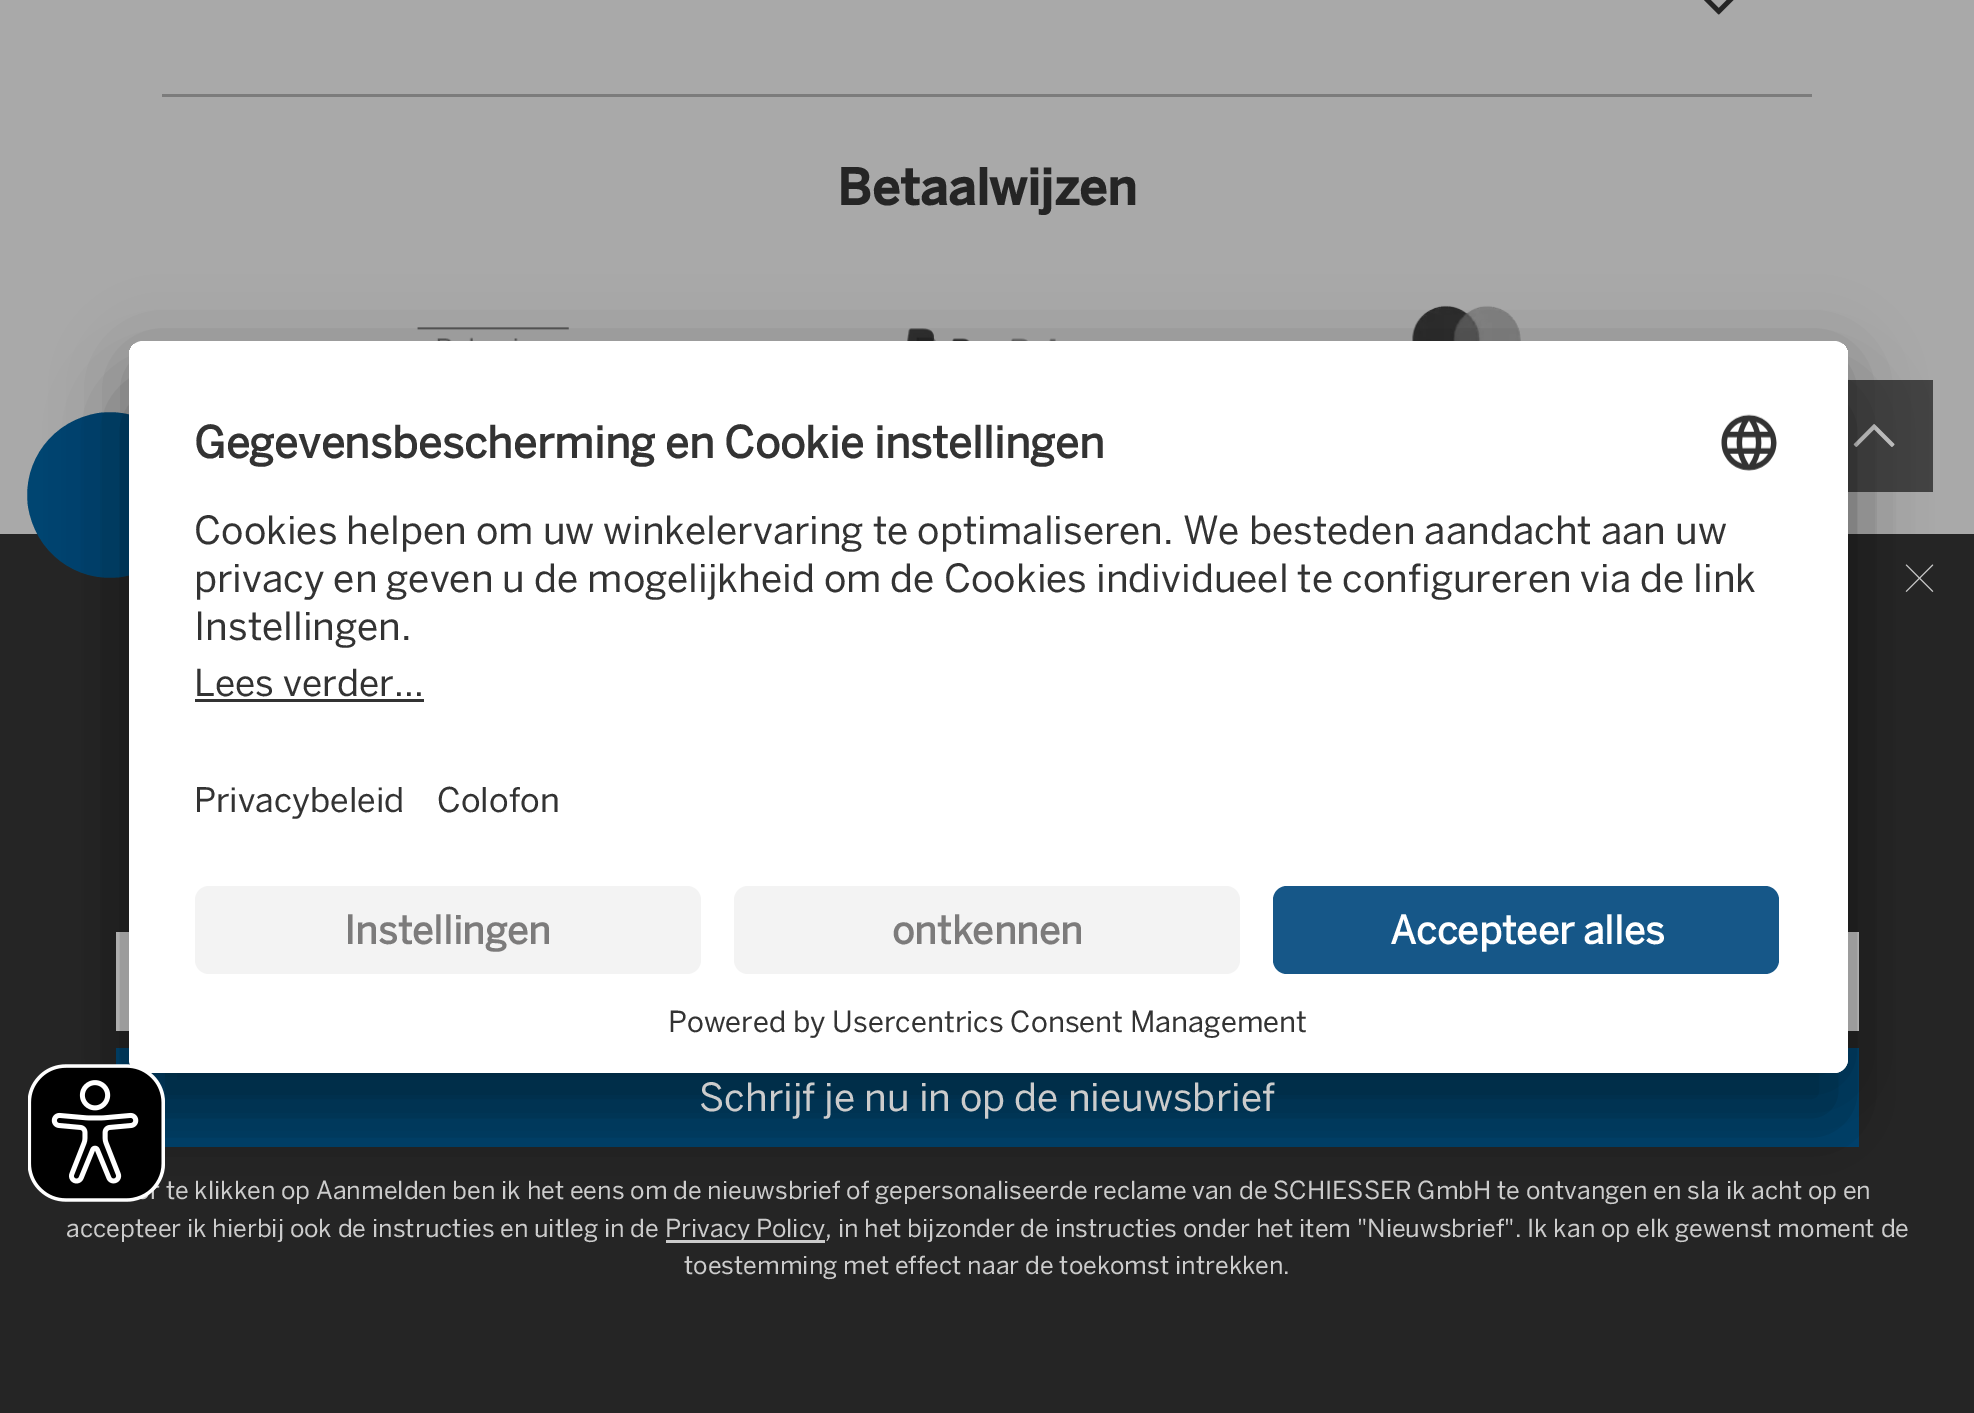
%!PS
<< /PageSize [1974 1413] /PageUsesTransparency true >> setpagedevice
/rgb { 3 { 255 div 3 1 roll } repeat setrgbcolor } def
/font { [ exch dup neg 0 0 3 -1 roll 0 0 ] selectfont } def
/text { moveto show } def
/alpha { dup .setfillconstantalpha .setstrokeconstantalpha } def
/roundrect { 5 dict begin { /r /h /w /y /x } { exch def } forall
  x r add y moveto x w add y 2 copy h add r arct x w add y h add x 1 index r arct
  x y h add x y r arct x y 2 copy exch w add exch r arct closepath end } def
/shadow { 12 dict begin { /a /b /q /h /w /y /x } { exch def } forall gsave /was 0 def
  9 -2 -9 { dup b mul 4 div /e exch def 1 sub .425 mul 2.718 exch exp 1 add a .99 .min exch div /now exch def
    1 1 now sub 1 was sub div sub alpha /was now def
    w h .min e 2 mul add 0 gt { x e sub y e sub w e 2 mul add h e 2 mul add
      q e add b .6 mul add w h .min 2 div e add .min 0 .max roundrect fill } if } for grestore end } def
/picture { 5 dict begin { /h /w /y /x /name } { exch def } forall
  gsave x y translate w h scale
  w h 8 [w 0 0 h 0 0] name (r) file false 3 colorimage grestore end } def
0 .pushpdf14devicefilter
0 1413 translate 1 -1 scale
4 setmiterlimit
169 169 169 rgb
0 0 1974 1413 rectfill
124 124 124 rgb
162 94 1650 3 rectfill
(img_01.rgb) 1704 0 30 15 picture
(img_02.rgb) 417 327 152 14 picture
(img_03.rgb) 907 328 149 13 picture
(img_04.rgb) 1412 305 109 36 picture
68 68 68 rgb
1848 380 85 112 rectfill
(img_05.rgb) 1853 424 42 23 picture
37 37 37 rgb
0 534 1974 879 rectfill
(img_06.rgb) 1905 564 29 28 picture
0 69 113 rgb
99 413 moveto 45 -6 86 25 93 71 rcurveto 6 45 -25 86 -71 93 rcurveto -45 6 -86 -25 -93 -71 rcurveto -6 -45 25 -86 71 -93 rcurveto closepath fill
204 204 204 rgb
116 932 1743 99 rectfill
0 69 113 rgb
116 1048 1743 99 rectfill
204 204 204 rgb
666 1240 159 3 rectfill
0 0 0 rgb
129 396 1719 732 14 38.5 0.3 shadow
129 355 1719 731 14 36 0.22 shadow
255 255 255 rgb
129 341 1719 732 14 roundrect fill
gsave
129 341 1719 732 14 roundrect clip newpath
143 341 moveto 1691 0 rlineto 7.5 0 14 6.5 14 14 rcurveto 0 509 rlineto -1719 0 rlineto 0 -509 rlineto 0 -7.5 6.5 -14 14 -14 rcurveto closepath clip newpath
129 344 1719 520 rectfill
grestore
(img_07.rgb) 1721 414 56 57 picture
51 51 51 rgb
195 699 229 3 rectfill
255 255 255 rgb
129 864 moveto 1719 0 rlineto 0 195 rlineto 0 7.5 -6.5 14 -14 14 rcurveto -1691 0 rlineto -7.5 0 -14 -6.5 -14 -14 rcurveto closepath fill
243 243 243 rgb
195 886 506 88 14 roundrect fill
734 886 506 88 14 roundrect fill
22 87 136 rgb
1273 886 506 88 14 roundrect fill
/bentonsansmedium-Bold 49.5 font
37 37 37 rgb
(Betaalwijzen) 837 205 text
/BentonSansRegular-Regular 38.5 font
204 204 204 rgb
(Schrijf je nu in op de nieuwsbrief) 699 1111 text
/BentonSansRegular-Regular 24.75 font
(r te klikken op Aanmelden ben ik het eens om de nieuwsbrief of gepersonaliseerde reclame van de SCHIESSER GmbH te ontvangen en sla ik acht op en) 150 1199 text
(accepteer ik hierbij ook de instructies en uitleg in de) 66 1237 text
(Privacy Policy, in het bijzonder de instructies onder het item "Nieuwsbrief". Ik kan op elk gewenst moment de) 665 1237 text
(toestemming met effect naar de toekomst intrekken.) 684 1274 text
/BentonSansRegular-Bold 43.3 font
51 51 51 rgb
(Gegevensbescherming en Cookie instellingen) 194 458 text
/BentonSansRegular-Regular 38.5 font
(Cookies helpen om uw winkelervaring te optimaliseren. We besteden aandacht aan uw) 194 544 text
(privacy en geven u de mogelijkheid om de Cookies individueel te configureren via de link) 194 592 text
(Instellingen.) 194 640 text
/BentonSansRegular-Regular 36.75 font
(Lees verder...) 194 696 text
/BentonSansRegular-Regular 33.75 font
(Privacybeleid) 194 812 text
(Colofon) 437 812 text
/BentonSansRegular-Bold 38.5 font
124 123 123 rgb
(Instellingen) 344 944 text
(ontkennen) 892 944 text
255 255 255 rgb
(Accepteer alles) 1390 944 text
/BentonSansRegular-Regular 28.9 font
51 51 51 rgb
(Powered by Usercentrics Consent Management) 668 1032 text
(img_08.rgb) 28 1064 137 138 picture
.poppdf14devicefilter showpage
